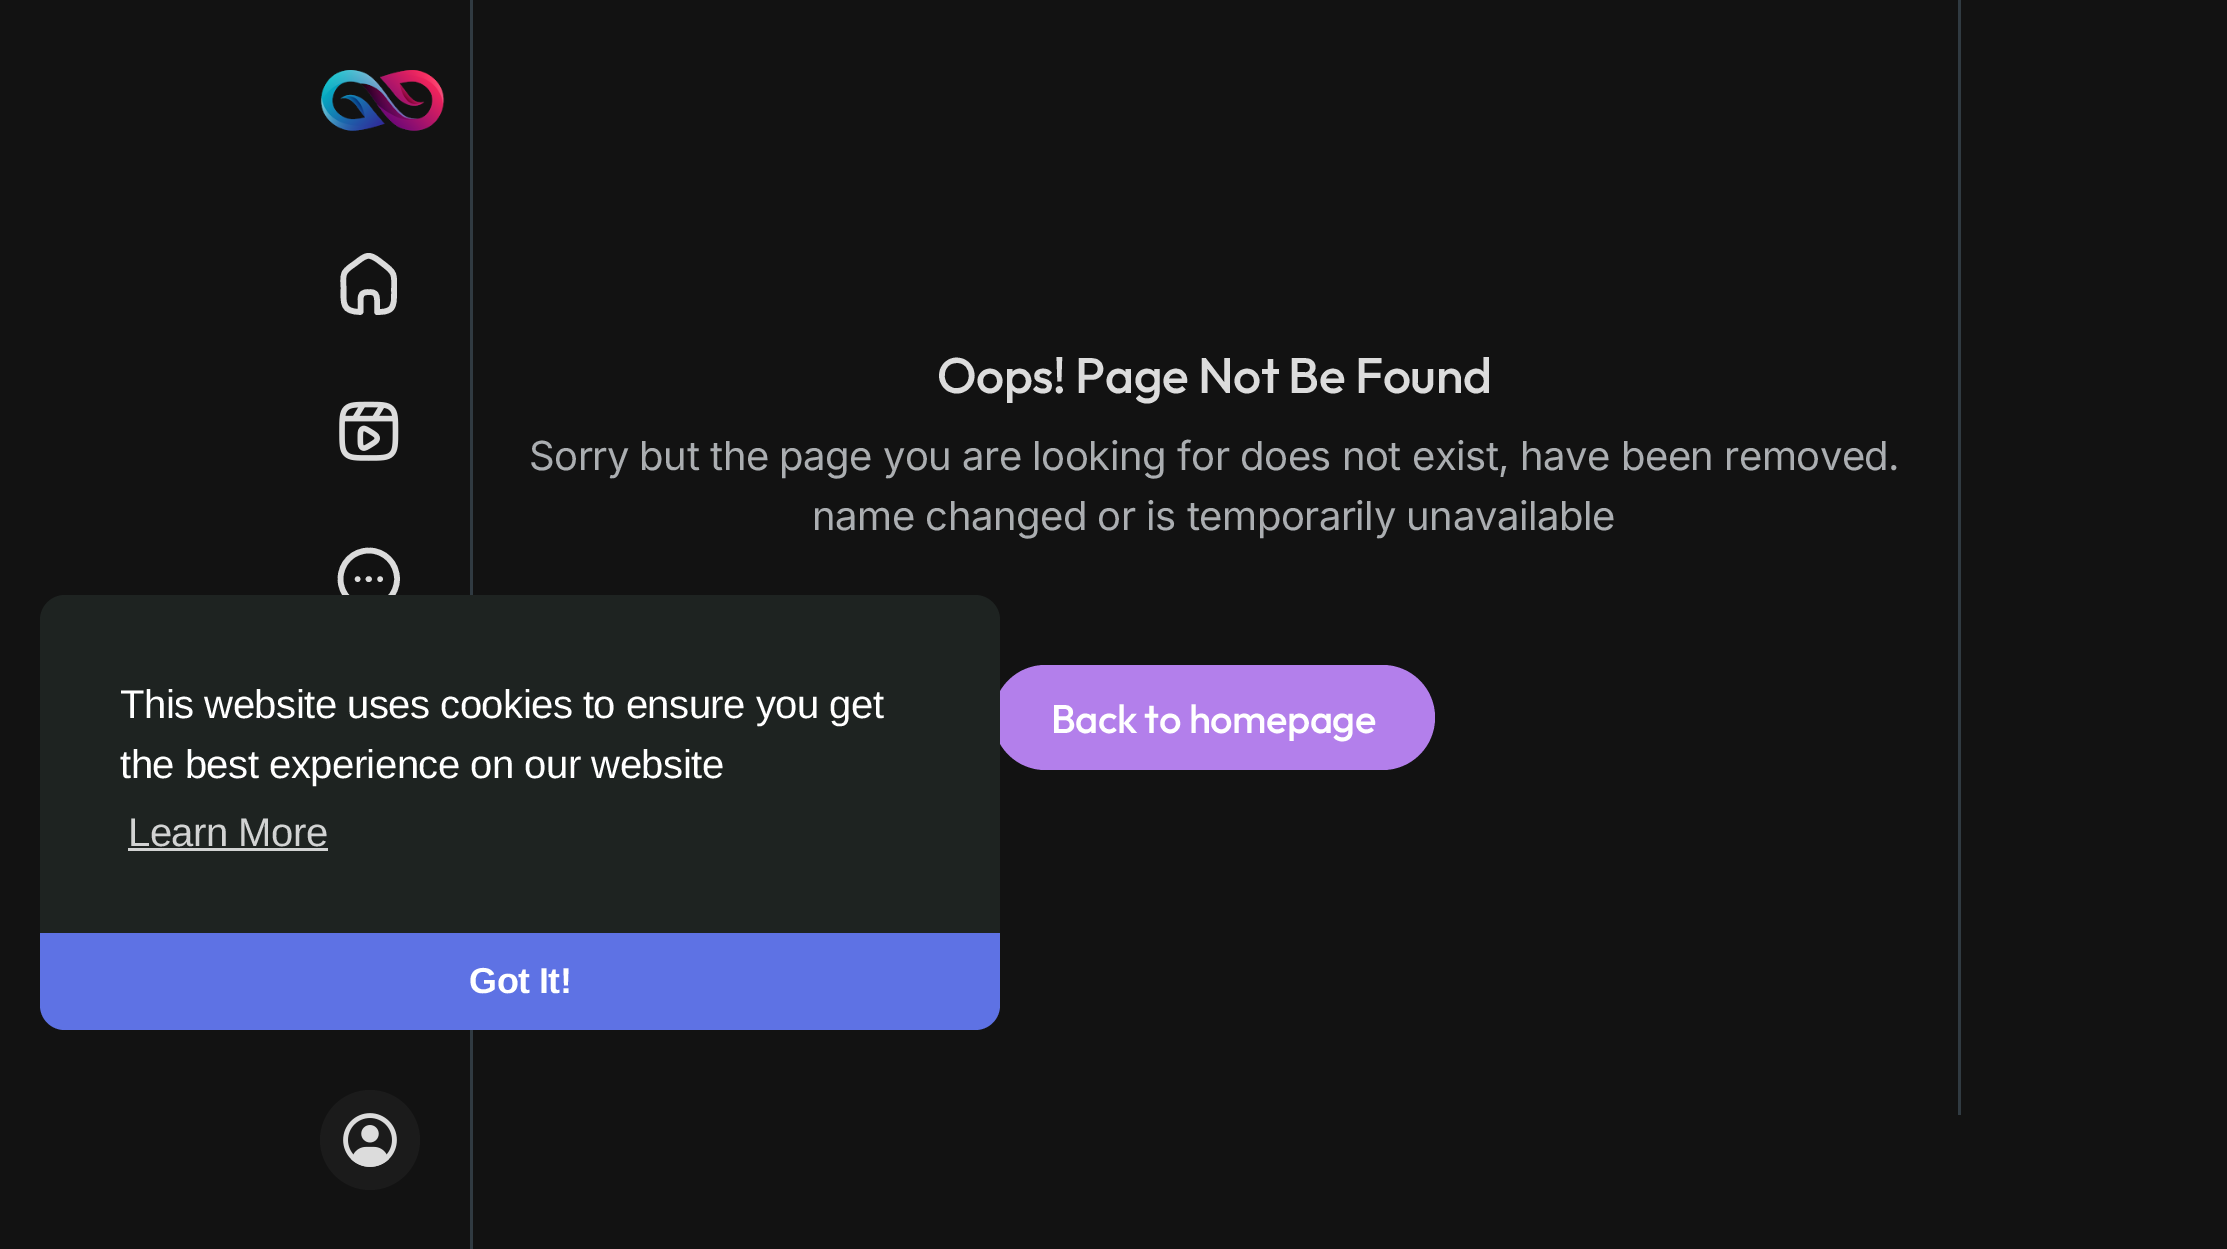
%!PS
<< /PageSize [2227 1249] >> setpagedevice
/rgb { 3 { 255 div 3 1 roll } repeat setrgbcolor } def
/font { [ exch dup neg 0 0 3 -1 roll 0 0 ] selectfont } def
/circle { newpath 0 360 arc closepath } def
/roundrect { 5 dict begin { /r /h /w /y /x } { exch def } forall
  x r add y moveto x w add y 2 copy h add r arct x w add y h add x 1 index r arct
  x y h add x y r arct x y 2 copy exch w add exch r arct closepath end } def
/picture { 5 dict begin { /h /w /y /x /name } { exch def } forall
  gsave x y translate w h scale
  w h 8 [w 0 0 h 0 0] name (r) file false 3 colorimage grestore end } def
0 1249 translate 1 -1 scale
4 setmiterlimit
18 18 18 rgb
0 0 2227 1249 rectfill
48 58 65 rgb
470 0 3 1249 rectfill
(img_01.rgb) 320 70 125 61 picture
220 220 220 rgb
5.6 setlinewidth
1 setlinejoin
355 263.5 moveto -3.5 2.5 -8.5 5.5 -10.5 9.5 rcurveto -2 4.5 -1 10 -1 15 rcurveto 0 16 -1.5 23.5 17 24 rcurveto 0 -11.5 rlineto 0 -6.5 1.5 -8.5 8.5 -8.5 rcurveto 6.5 0 8 2 8 8.5 rcurveto 0 11.5 rlineto 4.5 0 10.5 0 14 -3.5 rcurveto 3.5 -4 3 -10.5 3 -15.5 rcurveto 0 -20.5 2.5 -19 -14 -31.5 rcurveto -11.5 -9 -14 -6.5 -25 2 rcurveto closepath stroke
(img_02.rgb) 339 401 60 60 picture
1 setlinecap
368.5 579 moveto 0.5 0 rlineto 380 579 moveto 0 0 rlineto 357.5 579 moveto 0 0 rlineto stroke
0 setlinecap
0 setlinejoin
397 579 moveto 0 -16 -12.5 -28.5 -28 -28.5 rcurveto -16 0 -28.5 12.5 -28.5 28.5 rcurveto 0 15.5 12.5 28 28.5 28 rcurveto 15.5 0 28 -12.5 28 -28 rcurveto closepath stroke
27 27 27 rgb
370 1140 50 circle fill
(img_03.rgb) 343 1113 54 54 picture
48 58 65 rgb
1958 0 3 1115 rectfill
179 127 235 rgb
993 665 442 105 52.5 roundrect fill
30 35 33 rgb
40 595 960 435 25 roundrect fill
210 211 211 rgb
128 848 200 3 rectfill
94 114 228 rgb
40 933 moveto 960 0 rlineto 0 72 rlineto 0 14 -11 25 -25 25 rcurveto -910 0 rlineto -14 0 -25 -11 -25 -25 rcurveto closepath fill
/Outfit-Medium 50 font
220 220 220 rgb
937 393 moveto -0.5 0 (Oops! Page Not Be Found) ashow
/Inter-Regular 40 font
171 174 177 rgb
529 470 moveto -0.5 0 (Sorry but the page you are looking for does not exist, have been removed.) ashow
812 530 moveto -0.5 0 (name changed or is temporarily unavailable) ashow
/Outfit-Medium 40 font
255 255 255 rgb
1051 733 moveto -0.5 0 (Back to homepage) ashow
/LiberationSans-Regular 40 font
120 718 moveto -0.5 0 (This website uses cookies to ensure you get) ashow
120 778 moveto -0.5 0 (the best experience on our website) ashow
210 211 211 rgb
128 846 moveto -0.5 0 (Learn More) ashow
/LiberationSans-Bold 36 font
255 255 255 rgb
469 993 moveto -0.5 0 (Got It!) ashow
showpage
